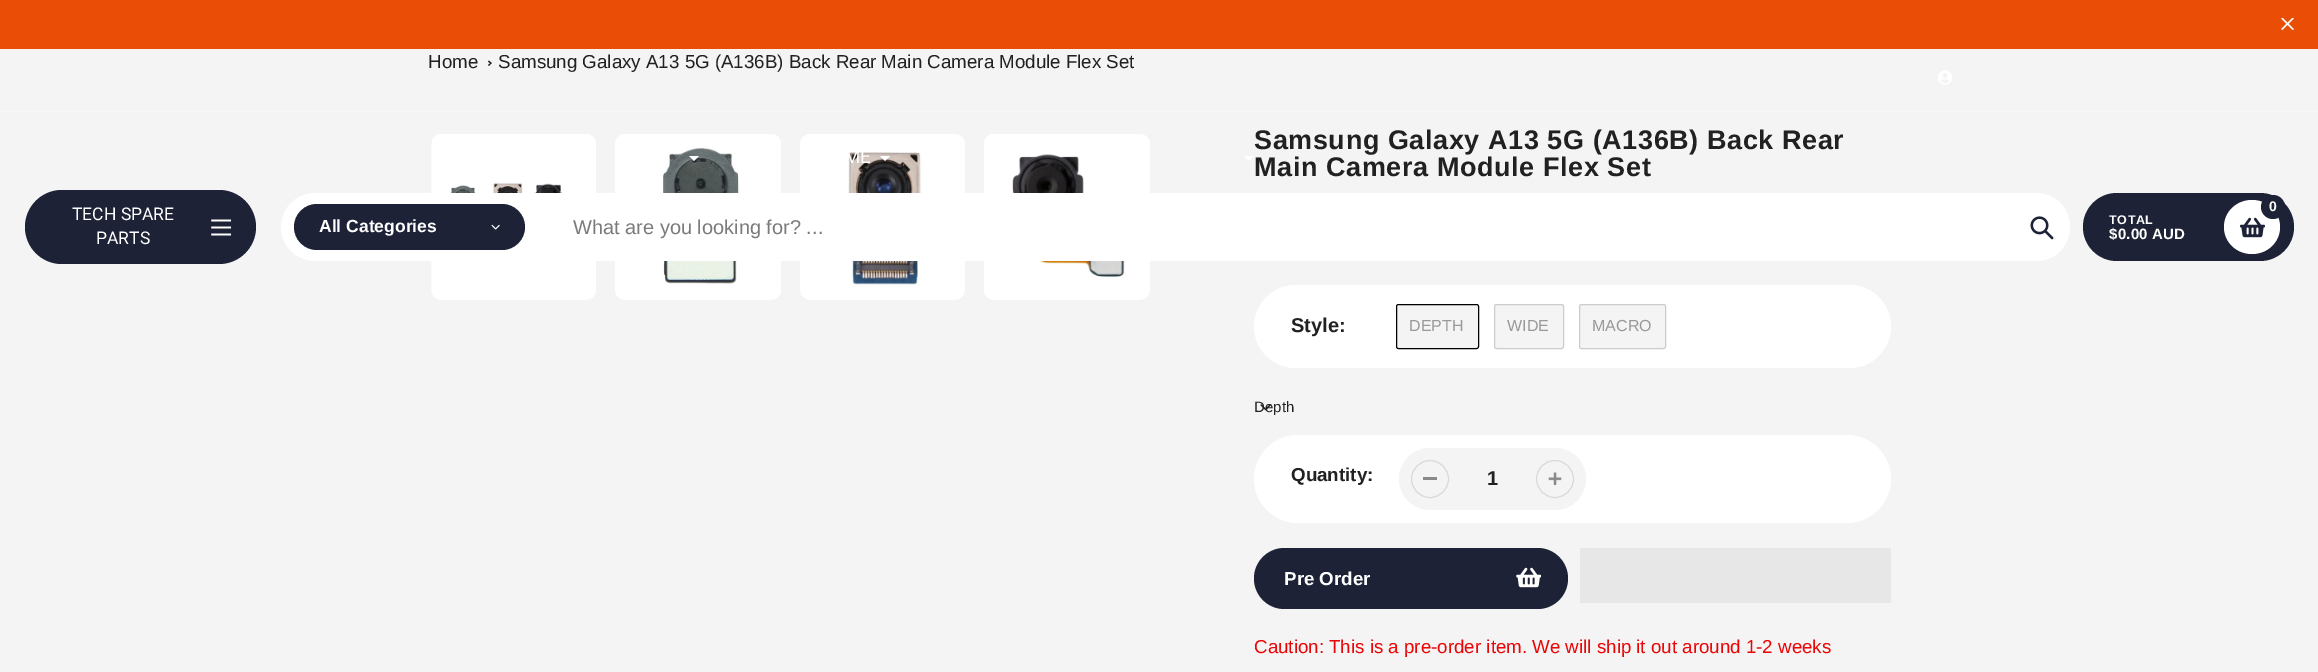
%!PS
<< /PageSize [2318 672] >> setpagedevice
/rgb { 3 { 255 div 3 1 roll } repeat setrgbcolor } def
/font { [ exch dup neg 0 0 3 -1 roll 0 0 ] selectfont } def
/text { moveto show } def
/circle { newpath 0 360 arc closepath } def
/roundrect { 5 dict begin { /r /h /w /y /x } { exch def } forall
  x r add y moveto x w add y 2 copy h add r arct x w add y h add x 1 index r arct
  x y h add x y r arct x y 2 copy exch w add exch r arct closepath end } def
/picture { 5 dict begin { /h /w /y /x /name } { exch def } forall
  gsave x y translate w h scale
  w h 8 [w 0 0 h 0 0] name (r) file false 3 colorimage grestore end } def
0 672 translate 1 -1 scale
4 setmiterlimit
244 244 244 rgb
0 0 2318 672 rectfill
234 77 6 rgb
0 0 2318 49 rectfill
(img_01.rgb) 2281 18 13 12 picture
33 33 33 rgb
489 60.5 moveto 2.5 2.5 rlineto -0.5 1 rlineto -3 -2.5 rlineto closepath fill
491 62.5 moveto 0.5 0.5 rlineto -2.5 3 rlineto -1 -1 rlineto closepath fill
(img_02.rgb) 431 134 165 166 picture
(img_03.rgb) 615 134 166 166 picture
(img_04.rgb) 800 134 165 166 picture
(img_05.rgb) 984 134 166 166 picture
255 255 255 rgb
1254 285 637 83 41.5 roundrect fill
244 244 244 rgb
1396.5 304.5 82 44 2 roundrect gsave fill grestore
0 0 0 rgb
stroke
244 244 244 rgb
1494.5 304.5 69 44 2 roundrect gsave fill grestore
204 204 204 rgb
stroke
244 244 244 rgb
1579.5 304.5 86 44 2 roundrect gsave fill grestore
204 204 204 rgb
stroke
(img_06.rgb) 1260 404 11 7 picture
255 255 255 rgb
1254 435 637 88 44 roundrect fill
244 244 244 rgb
1399 448 187 62 31 roundrect fill
137 137 137 rgb
1423 477 14 3 rectfill
215 219 219 rgb
1430 479 18.5 circle stroke
(img_07.rgb) 1548 472 14 13 picture
1555 479 18.5 circle stroke
29 34 54 rgb
1254 548 314 61 30.5 roundrect fill
(img_08.rgb) 1516 567 25 21 picture
231 231 231 rgb
1580 548 311 55 rectfill
247 247 247 rgb
0 111 2318 1 rectfill
(img_09.rgb) 1938 70 14 15 picture
255 255 255 rgb
699 156 moveto -5 5 rlineto -5 -5 rlineto fill
890 156 moveto -5 5 rlineto -5 -5 rlineto fill
1254 156 moveto -5 5 rlineto -5 -5 rlineto fill
29 34 54 rgb
25 190 231 74 37 roundrect fill
(img_10.rgb) 211 219 20 17 picture
255 255 255 rgb
281 193 1789 68 34 roundrect fill
29 34 54 rgb
294 204 231 46 23 roundrect fill
(img_11.rgb) 491 224 9 6 picture
255 255 255 rgb
550 193 1520 68 34 roundrect fill
(img_12.rgb) 2030 216 24 24 picture
29 34 54 rgb
2083 193 211 68 34 roundrect fill
255 255 255 rgb
2252 200 moveto 15.5 0 28 12 28 27 rcurveto 0 15 -12.5 27 -28 27 rcurveto -15.5 0 -28 -12 -28 -27 rcurveto 0 -15 12.5 -27 28 -27 rcurveto closepath fill
(img_13.rgb) 2240 217 25 21 picture
29 34 54 rgb
2273 207 12 circle fill
/Arimo-Regular 18.75 font
33 33 33 rgb
(Home) 428 68 text
(Samsung Galaxy A13 5G \(A136B\) Back Rear Main Camera Module Flex Set) 498 68 text
/Arimo-Bold 27 font
1254 149 moveto 0.6 0 (Samsung Galaxy A13 5G \(A136B\) Back Rear) ashow
1254 176 moveto 0.6 0 (Main Camera Module Flex Set) ashow
/Arimo-Bold 20 font
(Style:) 1291 332 text
/Arimo-Regular 16 font
153 153 153 rgb
(DEPTH) 1409 331 text
(WIDE) 1507 331 text
(MACRO) 1592 331 text
/Arimo-Regular 15 font
33 33 33 rgb
(Depth) 1254 412 text
/Arimo-Bold 18.75 font
(Quantity:) 1291 481 text
/Arimo-Bold 20 font
(1) 1487 485 text
/Arimo-Bold 18.75 font
255 255 255 rgb
(Pre Order) 1284 585 text
/Arimo-Regular 18.75 font
234 6 6 rgb
(Caution: This is a pre-order item. We will ship it out around 1-2 weeks) 1254 653 text
/Roboto-Regular 18.75 font
255 255 255 rgb
(ME) 844 163 text
/Roboto-Regular 17.5 font
(TECH SPARE) 72 220 text
(PARTS) 96 244 text
/Arimo-Bold 17.5 font
(All Categories) 319 232 text
/Arimo-Regular 20 font
123 123 123 rgb
(What are you looking for? ...) 573 234 text
/Arimo-Bold 14 font
255 255 255 rgb
(0) 2269 211 text
/Arimo-Bold 12.5 font
2109 224 moveto 0.6 0 (TOTAL) ashow
/Arimo-Bold 15 font
2109 239 moveto 0.25 0 ($0.00 AUD) ashow
showpage
